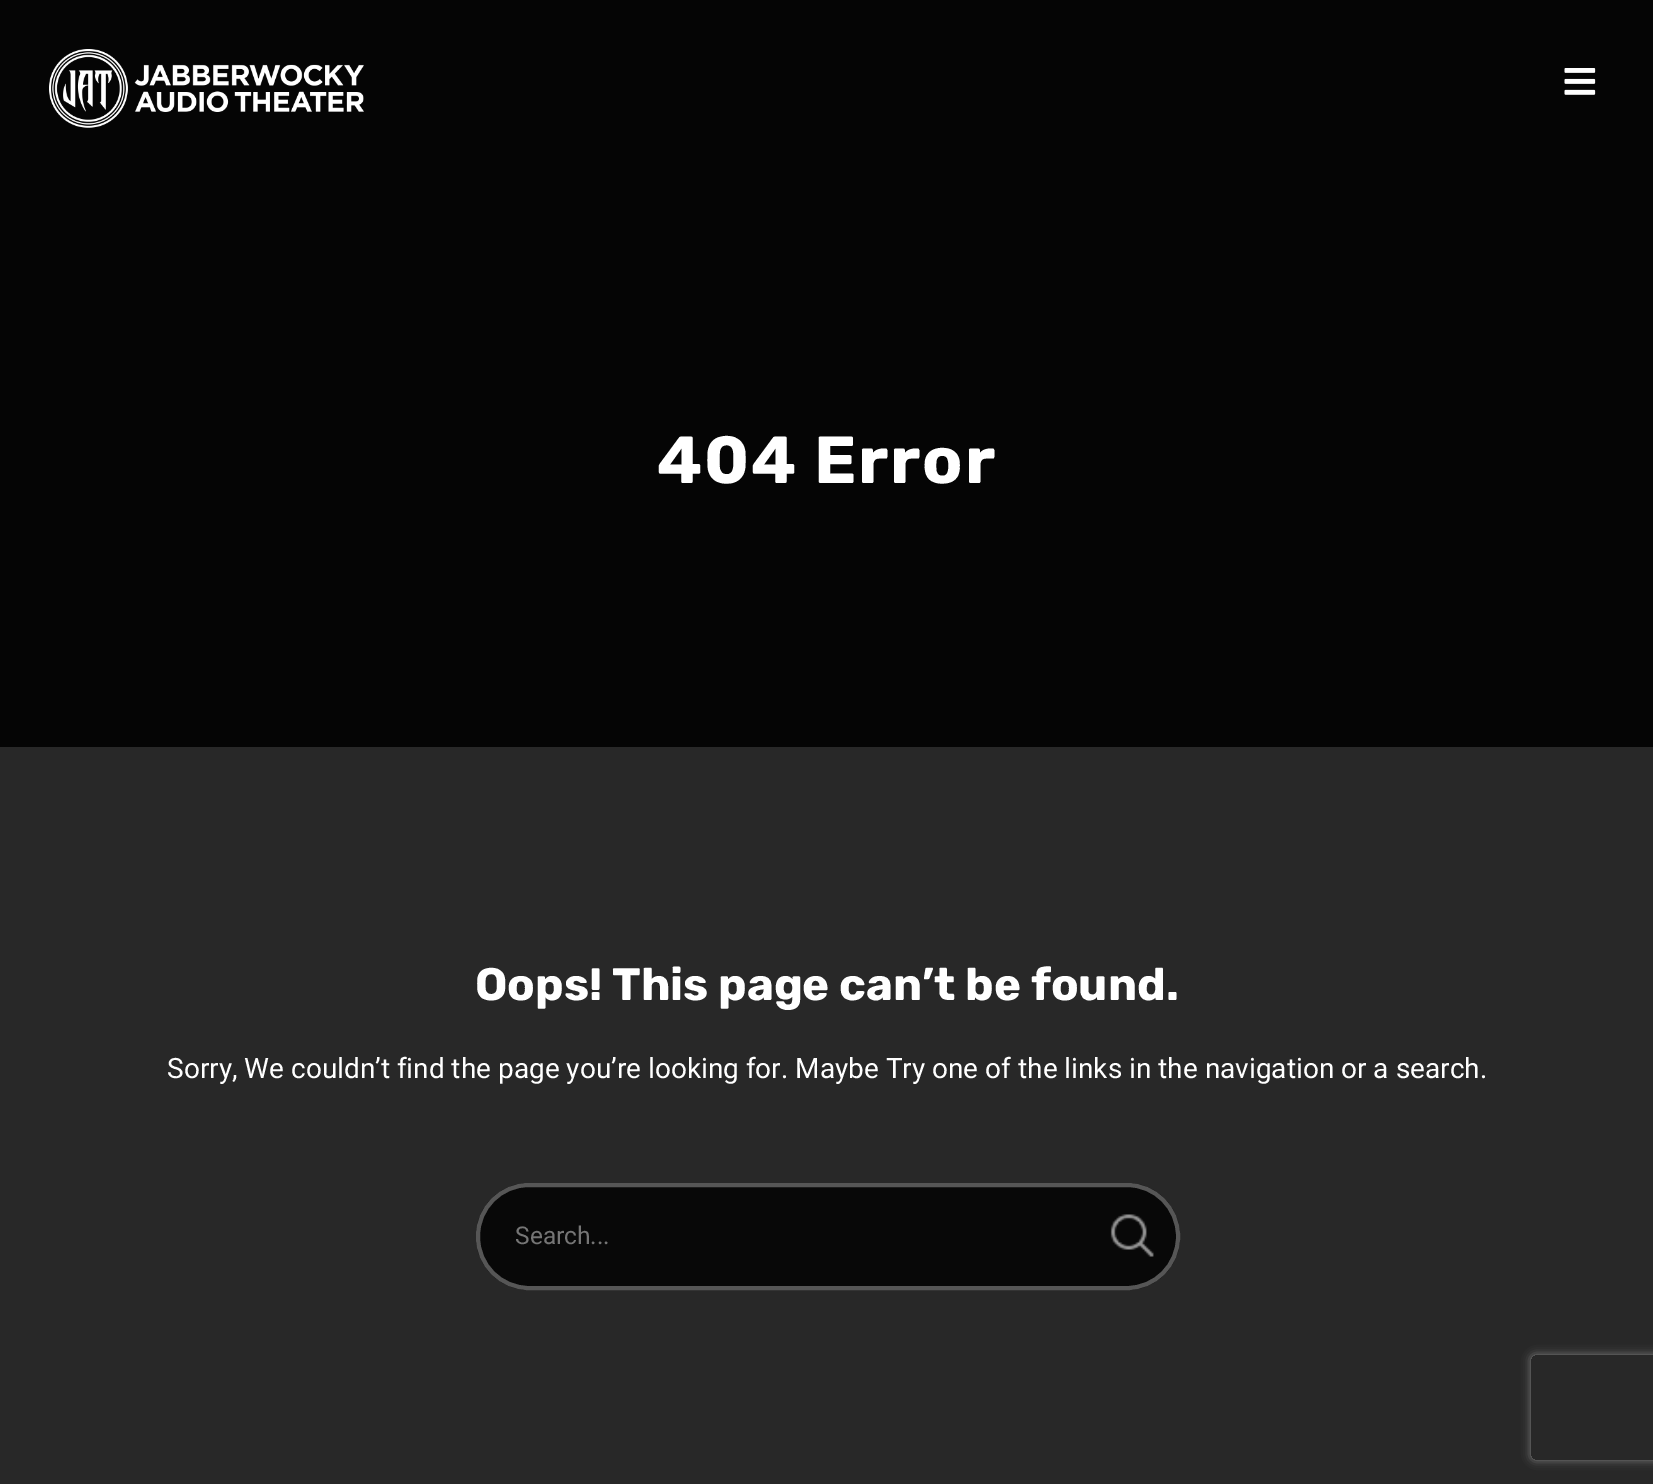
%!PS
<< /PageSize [1653 1484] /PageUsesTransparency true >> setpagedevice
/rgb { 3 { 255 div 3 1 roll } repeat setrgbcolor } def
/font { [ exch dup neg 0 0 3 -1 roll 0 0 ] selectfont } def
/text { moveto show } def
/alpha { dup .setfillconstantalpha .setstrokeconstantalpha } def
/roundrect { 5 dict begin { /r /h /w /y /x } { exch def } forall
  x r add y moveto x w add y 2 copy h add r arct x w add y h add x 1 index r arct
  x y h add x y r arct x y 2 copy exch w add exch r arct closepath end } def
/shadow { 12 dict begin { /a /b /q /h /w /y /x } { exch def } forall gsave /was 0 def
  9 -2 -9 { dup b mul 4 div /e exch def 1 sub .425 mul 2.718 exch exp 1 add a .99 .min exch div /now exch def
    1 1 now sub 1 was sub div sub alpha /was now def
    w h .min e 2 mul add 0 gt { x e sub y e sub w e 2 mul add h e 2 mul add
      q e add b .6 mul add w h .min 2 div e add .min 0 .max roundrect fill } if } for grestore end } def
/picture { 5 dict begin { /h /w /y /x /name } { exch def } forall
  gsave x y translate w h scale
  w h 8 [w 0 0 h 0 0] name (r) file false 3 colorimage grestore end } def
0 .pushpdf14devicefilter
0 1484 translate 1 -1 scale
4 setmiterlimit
40 40 40 rgb
0 0 1653 1484 rectfill
5 5 5 rgb
0 0 1653 747 rectfill
(img_01.rgb) 49 49 315 79 picture
(img_02.rgb) 1564 68 32 27 picture
8 8 8 rgb
476 1183 704 107 53 roundrect fill
(img_03.rgb) 1110 1214 44 43 picture
86 86 86 rgb
4 setlinewidth
478 1185 700 103 51 roundrect stroke
gsave
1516 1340 moveto 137 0 rlineto 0 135 rlineto -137 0 rlineto closepath 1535 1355 moveto 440 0 rlineto 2 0 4 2 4 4 rcurveto 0 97 rlineto 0 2 -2 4 -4 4 rcurveto -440 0 rlineto -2 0 -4 -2 -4 -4 rcurveto 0 -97 rlineto 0 -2 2 -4 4 -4 rcurveto closepath eoclip newpath
128 128 128 rgb
1531 1355 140 105 4 4.5 1 shadow
grestore
/Rubik-Light 66.5 font
255 255 255 rgb
657 483 moveto 1.75 0 (404 Error) ashow
/Rubik-Light 45.5 font
(Oops! This page can’t be found.) 475 1000 text
/Roboto-Regular 28 font
(Sorry, We couldn’t find the page you’re looking for. Maybe Try one of the links in the navigation or a search.) 167 1078 text
/Roboto-Regular 24.5 font
117 117 117 rgb
(Search...) 515 1244 text
.poppdf14devicefilter showpage
